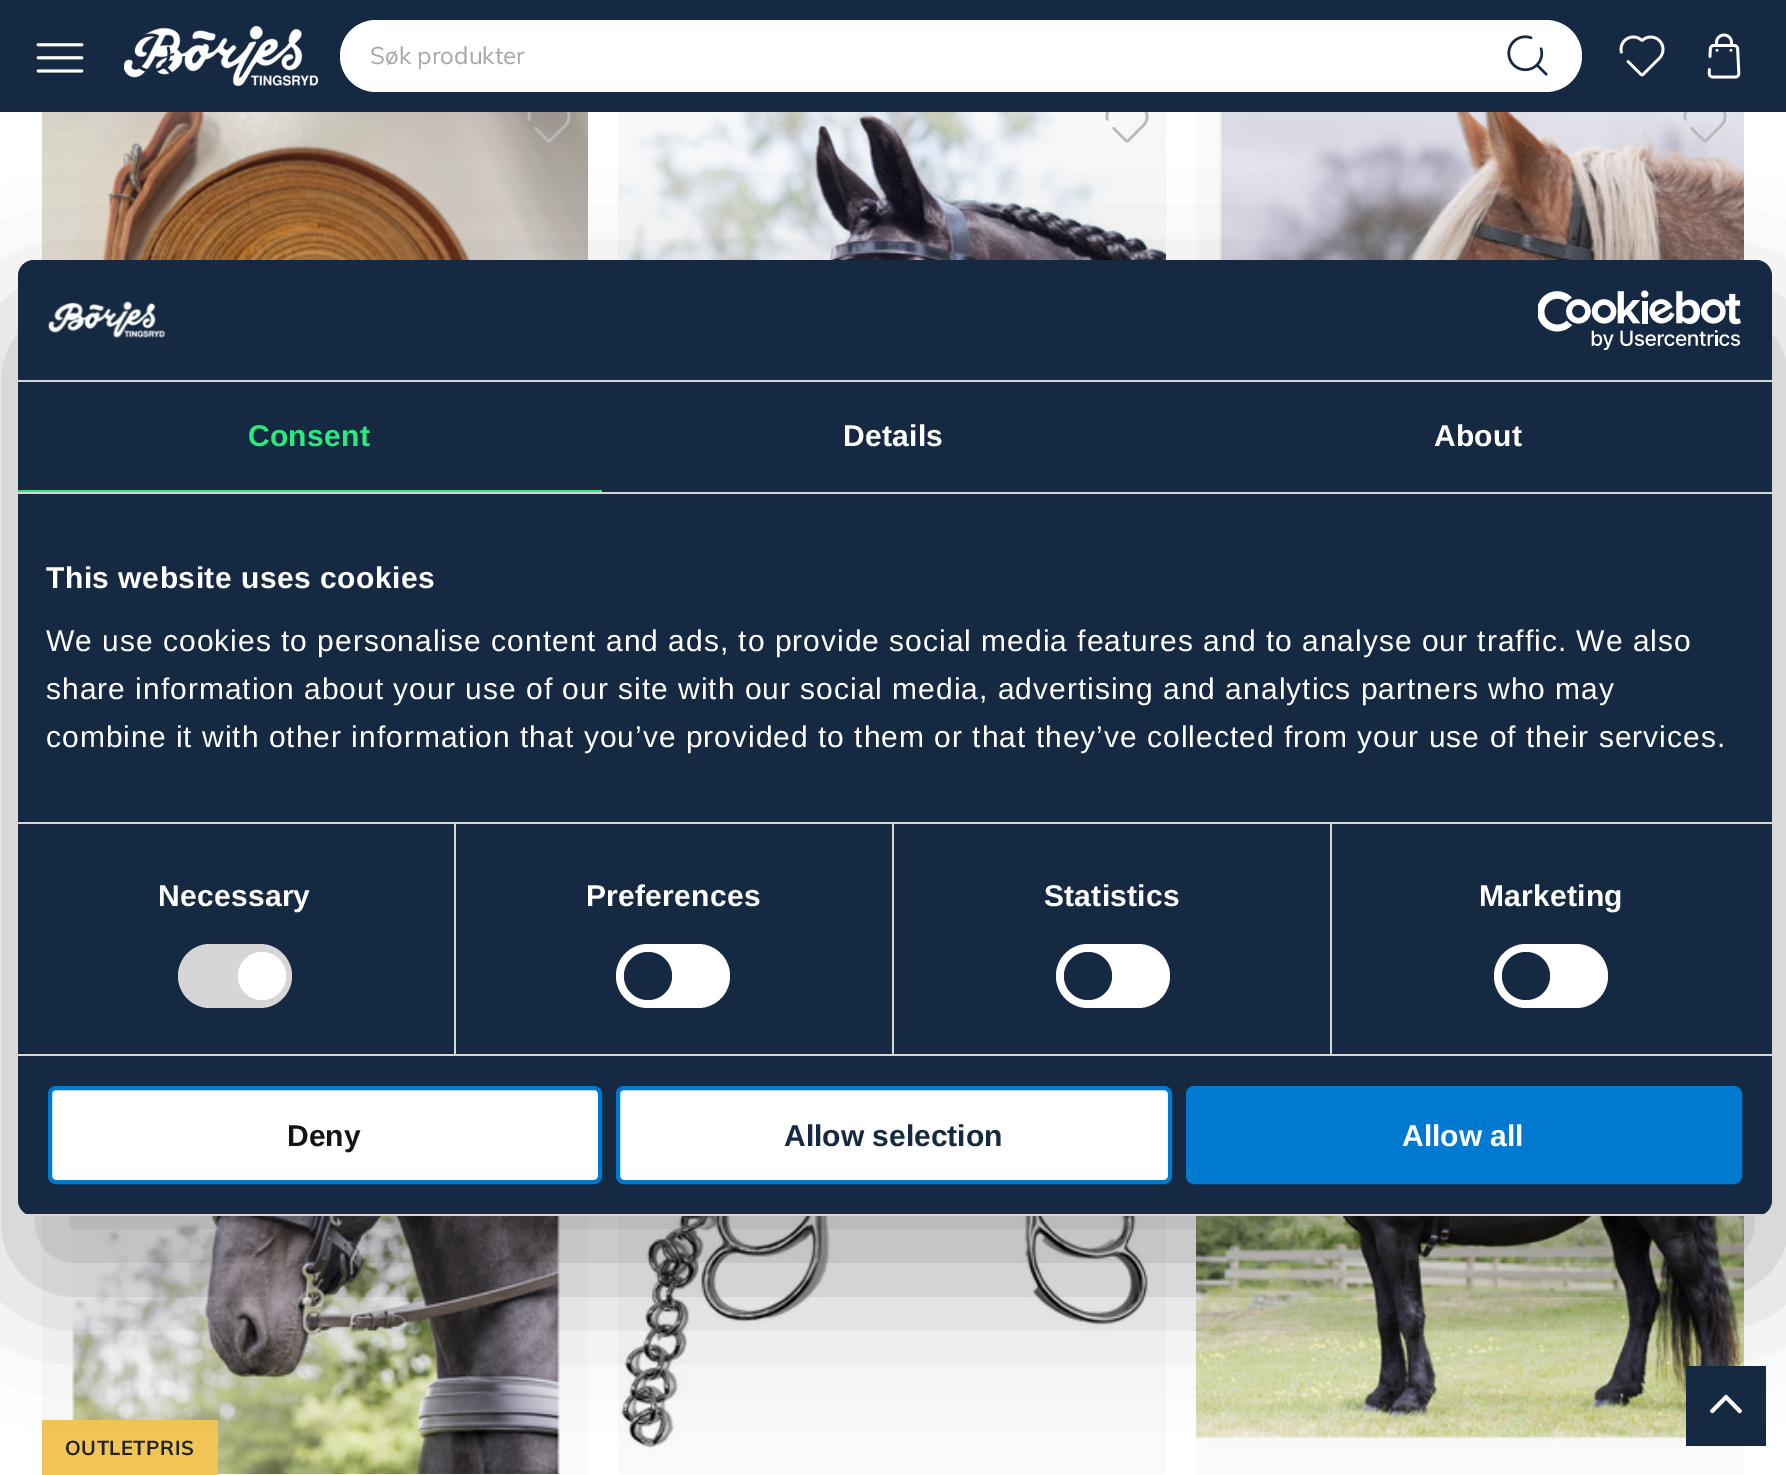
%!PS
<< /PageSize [1786 1475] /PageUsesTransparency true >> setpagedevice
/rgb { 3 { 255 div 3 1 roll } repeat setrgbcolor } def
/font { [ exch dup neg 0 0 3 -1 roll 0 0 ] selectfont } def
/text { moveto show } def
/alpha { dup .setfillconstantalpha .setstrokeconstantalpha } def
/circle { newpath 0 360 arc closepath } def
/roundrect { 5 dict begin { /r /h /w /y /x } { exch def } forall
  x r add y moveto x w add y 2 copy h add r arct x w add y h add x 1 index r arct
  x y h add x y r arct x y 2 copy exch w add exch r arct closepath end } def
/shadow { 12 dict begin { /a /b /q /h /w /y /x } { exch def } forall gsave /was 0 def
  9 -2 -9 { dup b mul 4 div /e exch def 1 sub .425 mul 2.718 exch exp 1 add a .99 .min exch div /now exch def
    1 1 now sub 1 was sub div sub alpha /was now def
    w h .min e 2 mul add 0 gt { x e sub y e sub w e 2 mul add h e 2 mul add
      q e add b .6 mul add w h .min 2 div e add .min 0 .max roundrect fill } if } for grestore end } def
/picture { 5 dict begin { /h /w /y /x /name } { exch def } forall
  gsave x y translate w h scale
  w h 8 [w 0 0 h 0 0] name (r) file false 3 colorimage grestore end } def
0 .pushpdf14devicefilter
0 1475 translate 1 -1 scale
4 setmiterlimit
255 255 255 rgb
0 0 1786 1475 rectfill
250 250 250 rgb
1196 1447 548 27 rectfill
618 1216 548 258 rectfill
42 1216 546 258 rectfill
1196 112 21 148 rectfill
21 41 66 rgb
0 0 1786 112 rectfill
(img_01.rgb) 36 43 48 30 picture
(img_03.rgb) 124 26 194 60 picture
(img_02.rgb) 134 33 39 41 picture
(img_04.rgb) 1619 35 46 42 picture
(img_05.rgb) 1707 33 34 46 picture
255 255 255 rgb
340 20 1242 72 36 roundrect fill
(img_06.rgb) 1507 35 41 41 picture
(img_18.rgb) 1196 1216 548 231 picture
21 41 66 rgb
1686 1366 80 80 rectfill
(img_09.rgb) 1710 1394 32 20 picture
(img_10.rgb) 42 112 546 148 picture
(img_11.rgb) 527 112 44 31 picture
(img_12.rgb) 618 112 548 148 picture
(img_13.rgb) 1105 112 44 31 picture
(img_14.rgb) 1217 112 527 148 picture
(img_15.rgb) 1683 112 44 31 picture
(img_16.rgb) 72 1216 489 258 picture
241 197 85 rgb
42 1420 176 55 rectfill
(img_17.rgb) 618 1216 530 233 picture
0 0 0 rgb
18 324 1754 956 16 68 0.3 shadow
21 41 66 rgb
18 260 1754 956 16 roundrect fill
214 214 214 rgb
18 380 1754 2 rectfill
(img_07.rgb) 48 301 117 37 picture
(img_08.rgb) 1538 290 203 60 picture
18 492 1754 2 rectfill
44 232 126 rgb
18 490 584 2 rectfill
214 214 214 rgb
18 822 1754 2 rectfill
18 1054 1754 2 rectfill
454 824 2 230 rectfill
178 944 114 64 32 roundrect fill
255 255 255 rgb
262 976 24 circle fill
214 214 214 rgb
892 824 2 230 rectfill
255 255 255 rgb
616 944 114 64 32 roundrect fill
21 41 66 rgb
648 976 24 circle fill
214 214 214 rgb
1330 824 2 230 rectfill
255 255 255 rgb
1056 944 114 64 32 roundrect fill
21 41 66 rgb
1088 976 24 circle fill
255 255 255 rgb
1494 944 114 64 32 roundrect fill
21 41 66 rgb
1526 976 24 circle fill
gsave
18 260 1754 956 16 roundrect clip newpath
214 214 214 rgb
18 1214 1754 2 rectfill
grestore
255 255 255 rgb
50 1088 550 94 6 roundrect gsave fill grestore
0 122 209 rgb
4 setlinewidth
stroke
255 255 255 rgb
618 1088 552 94 6 roundrect gsave fill grestore
0 122 209 rgb
stroke
1188 1088 552 94 6 roundrect gsave fill grestore
stroke
/Muli-Regular 24 font
166 166 166 rgb
(Søk produkter) 370 64 text
/LiberationSans-Bold 30 font
44 232 126 rgb
248 446 moveto 0.25 0 (Consent) ashow
255 255 255 rgb
843 446 moveto 0.25 0 (Details) ashow
1434 446 moveto 0.25 0 (About) ashow
46 588 moveto 0.5 0 (This website uses cookies) ashow
/LiberationSans-Regular 30 font
46 651 moveto 1 0 (We use cookies to personalise content and ads, to provide social media features and to analyse our traffic. We also) ashow
46 699 moveto 1 0 (share information about your use of our site with our social media, advertising and analytics partners who may) ashow
46 747 moveto 1 0 (combine it with other information that you’ve provided to them or that they’ve collected from your use of their services.) ashow
/LiberationSans-Bold 30 font
158 906 moveto 0.25 0 (Necessary) ashow
586 906 moveto 0.25 0 (Preferences) ashow
1044 906 moveto 0.25 0 (Statistics) ashow
1479 906 moveto 0.25 0 (Marketing) ashow
20 20 20 rgb
(Deny) 287 1146 text
21 41 66 rgb
(Allow selection) 784 1146 text
255 255 255 rgb
(Allow all) 1402 1146 text
/Muli-Bold 20 font
34 34 34 rgb
65 1455 moveto 0.5 0 (OUTLETPRIS) ashow
.poppdf14devicefilter showpage
